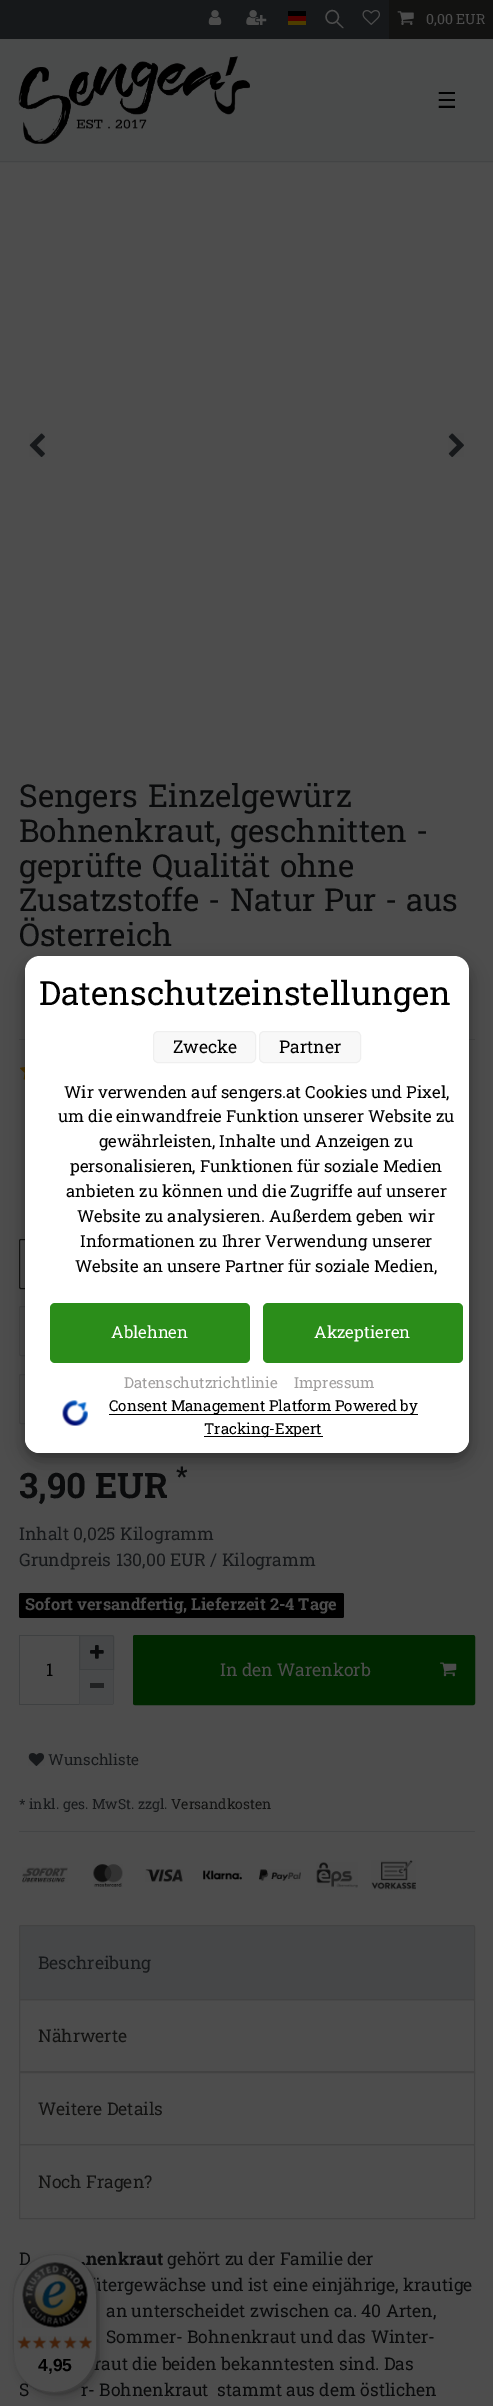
%!PS
<< /PageSize [493 2406] /PageUsesTransparency true >> setpagedevice
/rgb { 3 { 255 div 3 1 roll } repeat setrgbcolor } def
/font { [ exch dup neg 0 0 3 -1 roll 0 0 ] selectfont } def
/text { moveto show } def
/alpha { dup .setfillconstantalpha .setstrokeconstantalpha } def
/roundrect { 5 dict begin { /r /h /w /y /x } { exch def } forall
  x r add y moveto x w add y 2 copy h add r arct x w add y h add x 1 index r arct
  x y h add x y r arct x y 2 copy exch w add exch r arct closepath end } def
/shadow { 12 dict begin { /a /b /q /h /w /y /x } { exch def } forall gsave /was 0 def
  9 -2 -9 { dup b mul 4 div /e exch def 1 sub .425 mul 2.718 exch exp 1 add a .99 .min exch div /now exch def
    1 1 now sub 1 was sub div sub alpha /was now def
    w h .min e 2 mul add 0 gt { x e sub y e sub w e 2 mul add h e 2 mul add
      q e add b .6 mul add w h .min 2 div e add .min 0 .max roundrect fill } if } for grestore end } def
/picture { 5 dict begin { /h /w /y /x /name } { exch def } forall
  gsave x y translate w h scale
  w h 8 [w 0 0 h 0 0] name (r) file false 3 colorimage grestore end } def
0 .pushpdf14devicefilter
0 2406 translate 1 -1 scale
4 setmiterlimit
77 77 77 rgb
0 0 493 2406 rectfill
22 24 26 rgb
0 0 389 39 rectfill
(img_01.rgb) 208 10 14 15 picture
(img_02.rgb) 246 10 21 15 picture
77 61 0 rgb
288 21 18 4 rectfill
0 0 0 rgb
288 11 18 5 rectfill
77 0 0 rgb
288 16 18 5 rectfill
77 77 77 rgb
342.5 28 moveto -2 -1.5 -13 -12.5 -12.5 -13 rcurveto 0.5 -0.5 rlineto 13 13 rlineto 0 0.5 -0.5 1 -1 0.5 rcurveto closepath fill
22 24 26 rgb
327.5 22 moveto -6.5 -6.5 3 -16.5 9.5 -10 rcurveto 6.5 6.5 -3 16 -9.5 10 rcurveto closepath fill
77 77 77 rgb
1.3 setlinewidth
328 21.5 moveto -6 -6 3 -15 8.5 -9 rcurveto 6 6 -3 14.5 -8.5 9 rcurveto closepath stroke
(img_03.rgb) 362 10 18 15 picture
18 18 17 rgb
389 0 104 39 rectfill
(img_04.rgb) 397 11 17 14 picture
74 75 75 rgb
0 39 493 124 rectfill
67 68 69 rgb
0 161 493 1 rectfill
(img_05.rgb) 18 56 232 88 picture
(img_06.rgb) 29 433 16 24 picture
(img_07.rgb) 448 433 16 24 picture
19 1039 456 1 rectfill
(img_08.rgb) 20 1067 5 13 picture
(img_09.rgb) 20 1067 5 13 picture
18 18 17 rgb
1 setlinewidth
19.5 1239.5 133 49 1.5 roundrect stroke
67 68 69 rgb
19.5 1306.5 201 49 1.5 roundrect stroke
19.5 1374.5 204 49 1.5 roundrect stroke
0 0 0 rgb
19 1593 325 25 2 roundrect fill
62 64 65 rgb
19 1635 60 1 rectfill
19 1704 60 1 rectfill
19 1635 1 70 rectfill
70 71 72 rgb
79.5 1635.5 moveto 32.5 0 rlineto 1 0 1.5 0.5 1.5 1.5 rcurveto 0 32.5 rlineto -34 0 rlineto closepath gsave fill grestore
62 64 65 rgb
stroke
(img_10.rgb) 90 1645 14 14 picture
72 73 74 rgb
79 1670 moveto 35 0 rlineto 0 33 rlineto 0 1 -1 2 -2 2 rcurveto -33 0 rlineto closepath fill
67 68 69 rgb
113 1670 1 34 rectfill
79 1704 34 1 rectfill
79 1670 1 35 rectfill
32 33 34 rgb
90 1683 14 5 rectfill
0 38 0 rgb
133.5 1635.5 341 69 1.5 roundrect gsave fill grestore
stroke
(img_11.rgb) 440 1662 17 15 picture
(img_12.rgb) 28 1753 17 13 picture
67 68 69 rgb
19 1831 456 1 rectfill
(img_13.rgb) 22 1867 46 16 picture
(img_14.rgb) 93 1864 30 23 picture
(img_15.rgb) 145 1869 38 13 picture
(img_16.rgb) 203 1870 39 10 picture
(img_17.rgb) 259 1869 42 12 picture
(img_18.rgb) 316 1862 42 26 picture
(img_19.rgb) 371 1860 45 30 picture
70 71 72 rgb
21 1925.5 moveto 452 0 rlineto 1 0 1.5 0.5 1.5 1.5 rcurveto 0 72.5 rlineto -455 0 rlineto 0 -72.5 rlineto 0 -1 0.5 -1.5 1.5 -1.5 rcurveto closepath gsave fill grestore
66 66 66 rgb
stroke
21 1999.5 moveto 452 0 rlineto 1 0 1.5 0.5 1.5 1.5 rcurveto 0 71.5 rlineto -455 0 rlineto 0 -71.5 rlineto 0 -1 0.5 -1.5 1.5 -1.5 rcurveto closepath stroke
21 2071.5 moveto 452 0 rlineto 1 0 1.5 0.5 1.5 1.5 rcurveto 0 71.5 rlineto -455 0 rlineto 0 -71.5 rlineto 0 -1 0.5 -1.5 1.5 -1.5 rcurveto closepath stroke
21 2144.5 moveto 452 0 rlineto 1 0 1.5 0.5 1.5 1.5 rcurveto 0 72.5 rlineto -455 0 rlineto 0 -72.5 rlineto 0 -1 0.5 -1.5 1.5 -1.5 rcurveto closepath stroke
0 0 0 rgb
25 965 444 496 15 12.5 0.17 shadow
25 963 444 496 15 5 0.2 shadow
255 255 255 rgb
25 956 444 497 15 roundrect fill
31 975 moveto 432 0 rlineto 3.5 0 6 2.5 6 6 rcurveto 0 457 rlineto 0 8.5 -6.5 15 -15 15 rcurveto -414 0 rlineto -8.5 0 -15 -6.5 -15 -15 rcurveto 0 -457 rlineto 0 -3.5 2.5 -6 6 -6 rcurveto closepath fill
248 248 248 rgb
153.5 1031.5 102 31 4.5 roundrect gsave fill grestore
239 239 239 rgb
stroke
248 248 248 rgb
259.5 1031.5 101 31 4.5 roundrect gsave fill grestore
239 239 239 rgb
stroke
43 141 26 rgb
50 1303 200 60 5 roundrect fill
263 1303 200 60 5 roundrect fill
(img_20.rgb) 62 1400 26 26 picture
0 0 0 rgb
109 1414 309 1 rectfill
204 1436 119 1 rectfill
16 2258 85 140 42.5 5 0.15 shadow
14 2255 85 140 42.5 1 0.15 shadow
/RobotoSlab-Regular 14 font
77 77 77 rgb
(0,00 EUR) 426 24 text
/DejaVuSans-Regular 22 font
0 0 0 rgb
(☰) 437 108 text
/RobotoSlab-Regular 31.5 font
10 11 12 rgb
19 807 moveto 3 0 32 (Sengers Einzelgewürz) widthshow
19 842 moveto 1 0 32 (Bohnenkraut, geschnitten -) widthshow
19 877 moveto 2 0 32 (geprüfte Qualität ohne) widthshow
19 911 moveto 1 0 32 (Zusatzstoffe - Natur Pur - aus) widthshow
(Österreich) 19 946 text
/RobotoSlab-Bold 35 font
(3,90 EUR) 19 1498 text
/RobotoSlab-Bold 26 font
(*) 176 1485 text
/RobotoSlab-Regular 17.5 font
22 24 26 rgb
(Inhalt 0,025 Kilogramm) 19 1540 text
(Grundpreis 130,00 EUR / Kilogramm) 19 1566 text
/RobotoSlab-Bold 16.4 font
77 77 77 rgb
(Sofort versandfertig, Lieferzeit 2-4 Tage) 25 1610 text
/RobotoSlab-Regular 17.5 font
0 0 0 rgb
(1) 46 1676 text
77 77 77 rgb
(In den Warenkorb) 220 1676 text
/RobotoSlab-Regular 15.25 font
22 24 26 rgb
(Wunschliste) 48 1765 text
/RobotoSlab-Regular 14 font
(* inkl. ges. MwSt. zzgl.) 19 1809 text
18 18 17 rgb
(Versandkosten) 171 1809 text
/RobotoSlab-Regular 17.5 font
22 24 26 rgb
(Beschreibung) 38 1969 text
18 18 17 rgb
(Nährwerte) 38 2042 text
(Weitere Details) 38 2115 text
(Noch Fragen?) 38 2188 text
10 11 12 rgb
(D) 19 2265 text
/RobotoSlab-Bold 17.5 font
(nenkraut) 86 2265 text
/RobotoSlab-Regular 17.5 font
(gehört zu der Familie der) 167 2265 text
(ütergewächse und ist eine einjährige, krautige) 91 2291 text
(an unterscheidet zwischen ca. 40 Arten,) 106 2317 text
(Sommer- Bohnenkraut und das Winter-) 106 2343 text
(raut die beiden bekanntesten sind. Das) 94 2370 text
(S) 19 2396 text
(r- Bohnenkraut  stammt aus dem östlichen) 81 2396 text
/RobotoSlab-Regular 33.25 font
0 0 0 rgb
(Datenschutzeinstellungen) 39 1005 text
/RobotoSlab-Regular 17.5 font
(Zwecke) 173 1053 text
(Partner) 279 1053 text
/RobotoSlab-Regular 16.7 font
(Wir verwenden auf sengers.at Cookies und Pixel,) 64 1098 text
(um die einwandfreie Funktion unserer Website zu) 58 1122 text
(gewährleisten, Inhalte und Anzeigen zu) 99 1147 text
(personalisieren, Funktionen für soziale Medien) 70 1172 text
(anbieten zu können und die Zugriffe auf unserer) 66 1197 text
(Website zu analysieren. Außerdem geben wir) 77 1222 text
(Informationen zu Ihrer Verwendung unserer) 80 1247 text
(Website an unsere Partner für soziale Medien,) 75 1272 text
255 255 255 rgb
(Ablehnen) 111 1338 text
(Akzeptieren) 314 1338 text
/RobotoSlab-Regular 15 font
161 159 159 rgb
(Datenschutzrichtlinie) 124 1388 text
(Impressum) 294 1388 text
0 0 0 rgb
(Consent Management Platform Powered by) 109 1411 text
(Tracking-Expert) 204 1434 text
77 77 77 rgb
13 2254 85 140 42.5 roundrect fill
0.1 alpha
0 0 0 rgb
56 2255 moveto 13 0 24 5 32 14 rcurveto -21 -24 -59 -18 -72 11 rcurveto -5 12 -3 30 -3 44 rcurveto 0 21 -3 42 13 58 rcurveto -8 -8 -12 -18 -12 -30 rcurveto 0 -54 rlineto 0 -24 19 -43 42 -43 rcurveto closepath fill
0.2 alpha
25 2381 moveto 7 8 18 13 31 13 rcurveto 23 0 42 -19 42 -42 rcurveto 0 -56 rlineto 0 -13 -6 -25 -16 -33 rcurveto 9 8 14 20 14 32 rcurveto 0 55 rlineto 0 23 -19 42 -42 42 rcurveto -11 0 -22 -4 -29 -11 rcurveto closepath fill
15 15 15 rgb
25 2382 moveto 8 7 19 12 31 12 rcurveto 23 0 42 -19 42 -42 rcurveto 0 -56 rlineto 0 -12 -6 -24 -15 -32 rcurveto 17 16 14 38 14 59 rcurveto 0 14 2 31 -3 44 rcurveto -12 27 -47 35 -69 15 rcurveto closepath fill
0.3 alpha
77 77 77 rgb
27 2383 moveto 8 7 18 11 29 11 rcurveto 23 0 42 -19 42 -42 rcurveto 0 -56 rlineto 0 -12 -6 -24 -15 -32 rcurveto 18 16 14 38 14 60 rcurveto 0 13 2 31 -3 43 rcurveto -12 26 -45 34 -67 16 rcurveto closepath fill
1 alpha
(img_21.rgb) 22 2262 66 66 picture
(img_27.rgb) 18 2336 13 13 picture
(img_22.rgb) 17 2336 15 13 picture
(img_28.rgb) 34 2336 12 13 picture
(img_23.rgb) 32 2336 15 13 picture
(img_29.rgb) 49 2336 12 13 picture
(img_24.rgb) 48 2336 14 13 picture
(img_30.rgb) 64 2336 14 13 picture
(img_25.rgb) 63 2336 14 13 picture
(img_31.rgb) 79 2336 13 13 picture
(img_26.rgb) 78 2336 14 13 picture
/LiberationSans-Bold 17.5 font
0 0 0 rgb
(4,95) 38 2371 text
.poppdf14devicefilter showpage
